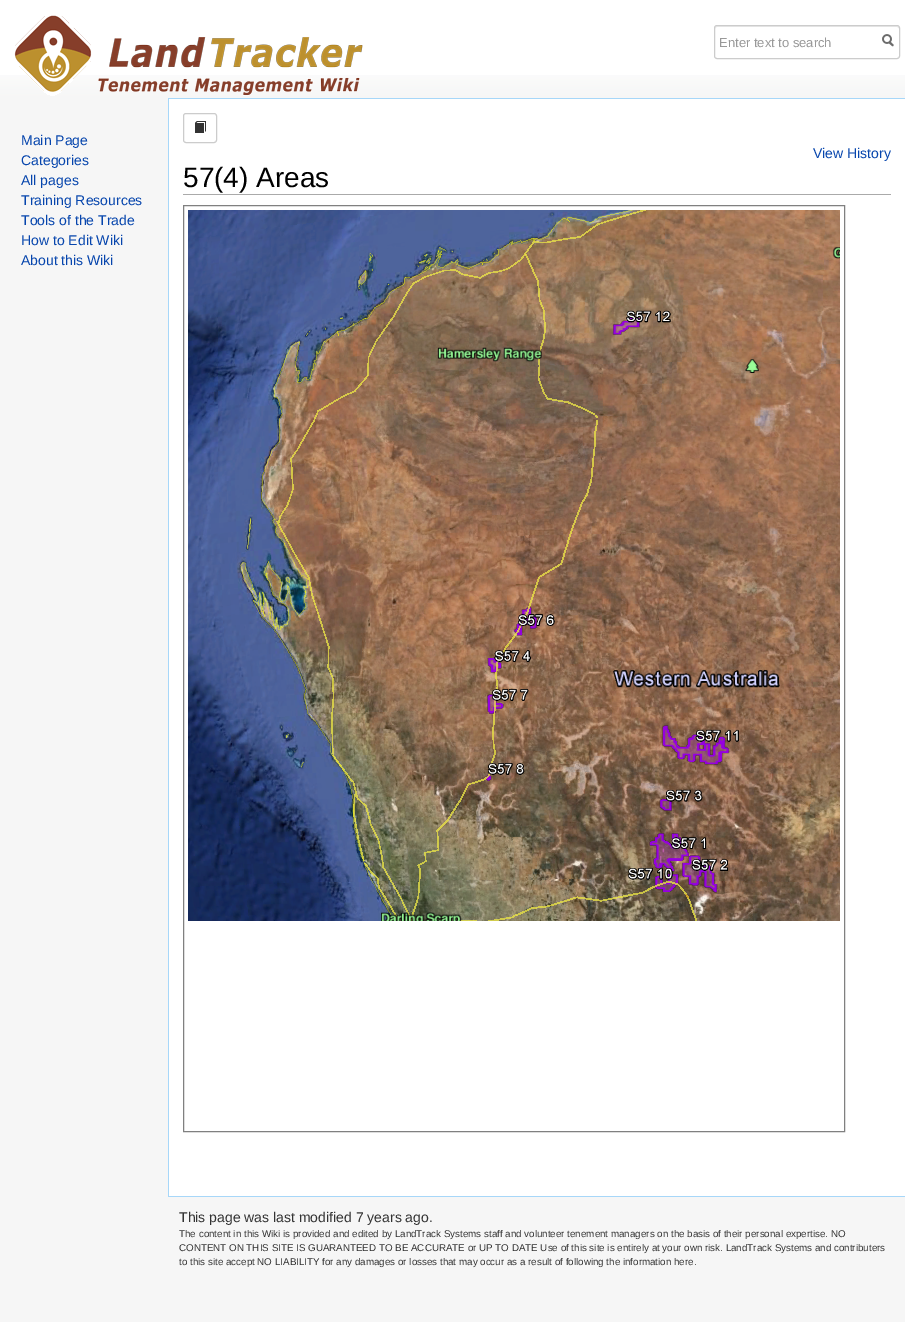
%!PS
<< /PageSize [905 1322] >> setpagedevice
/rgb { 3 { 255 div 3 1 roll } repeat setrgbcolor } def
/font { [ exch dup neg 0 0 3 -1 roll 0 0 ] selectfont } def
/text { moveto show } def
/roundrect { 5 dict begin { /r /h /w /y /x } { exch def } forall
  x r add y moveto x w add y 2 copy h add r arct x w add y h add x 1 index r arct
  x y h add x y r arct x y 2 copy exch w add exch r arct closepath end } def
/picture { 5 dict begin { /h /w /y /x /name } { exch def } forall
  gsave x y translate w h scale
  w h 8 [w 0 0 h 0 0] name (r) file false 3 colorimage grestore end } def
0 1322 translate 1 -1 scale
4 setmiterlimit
246 246 246 rgb
0 0 905 1322 rectfill
255 255 255 rgb
0 0 905 75 rectfill
(img_02.rgb) 0 75 905 23 picture
(img_01.rgb) 14 15 349 81 picture
236 236 236 rgb
717 27 moveto 180 0 rlineto 1 0 2 1 2 2 rcurveto 0 -1 rlineto 0 -1 -1 -2 -2 -2 rcurveto -180 0 rlineto -1 0 -2 1 -2 2 rcurveto 0 1 rlineto 0 -1 1 -2 2 -2 rcurveto closepath fill
204 204 204 rgb
714.5 25.5 185 33 2.5 roundrect stroke
(img_03.rgb) 882 34 12 13 picture
255 255 255 rgb
169 99 736 1097 rectfill
167 215 249 rgb
168 98 737 1 rectfill
168 1196 737 1 rectfill
168 98 1 1099 rectfill
204 204 204 rgb
183.5 113.5 33 29 2.5 roundrect stroke
(img_04.rgb) 195 121 11 12 picture
170 170 170 rgb
183 194 708 1 rectfill
128 128 128 rgb
183.5 205.5 661 926 rectstroke
(img_05.rgb) 188 210 652 711 picture
/LiberationSans-Regular 13 font
153 153 153 rgb
(Enter text to search) 719 47 text
/LiberationSans-Regular 14 font
6 69 173 rgb
(Main Page) 21 145 text
(Categories) 21 165 text
(All pages) 21 185 text
(Training Resources) 21 205 text
(Tools of the Trade) 21 225 text
(How to Edit Wiki) 21 245 text
(About this Wiki) 21 265 text
(View History) 813 158 text
/LiberationSans-Regular 28 font
0 0 0 rgb
(57\(4\) Areas) 183 187 text
/LiberationSans-Regular 14 font
51 51 51 rgb
(This page was last modified 7 years ago.) 179 1222 text
/LiberationSans-Regular 9.8 font
(The content in this Wiki is provided and edited by LandTrack Systems staff and volunteer tenement managers on the basis of their personal expertise. NO) 179 1237 text
(CONTENT ON THIS SITE IS GUARANTEED TO BE ACCURATE or UP TO DATE Use of this site is entirely at your own risk. LandTrack Systems and contributers) 179 1251 text
(to this site accept NO LIABILITY for any damages or losses that may occur as a result of following the information here.) 179 1265 text
showpage
